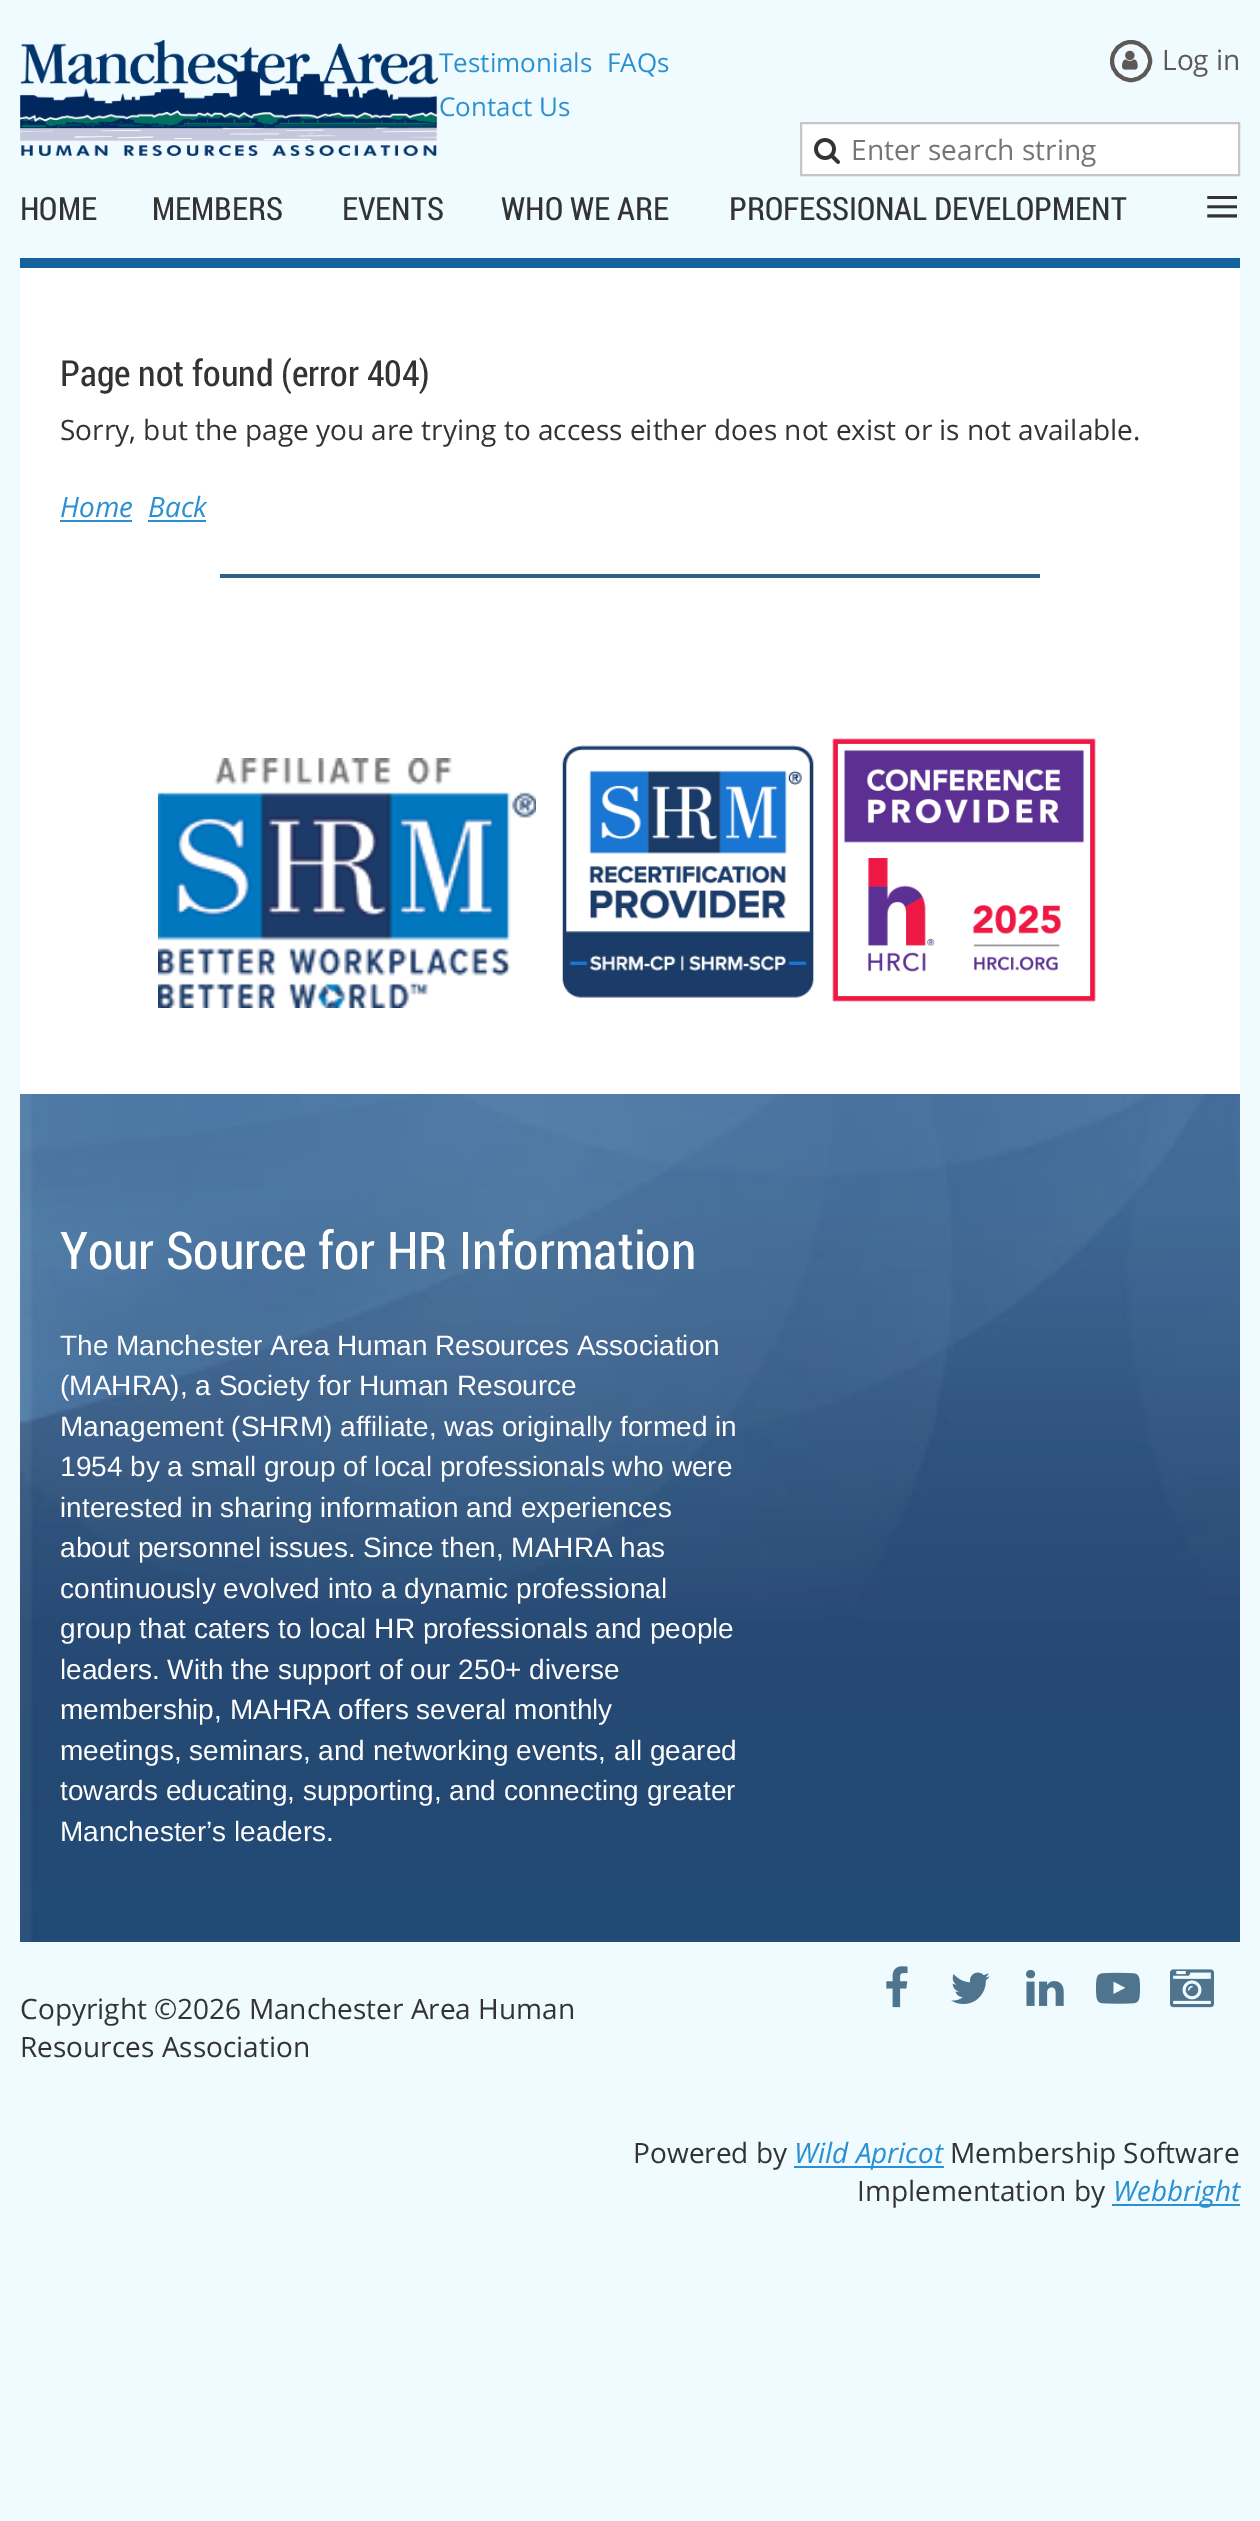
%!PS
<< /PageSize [1260 2521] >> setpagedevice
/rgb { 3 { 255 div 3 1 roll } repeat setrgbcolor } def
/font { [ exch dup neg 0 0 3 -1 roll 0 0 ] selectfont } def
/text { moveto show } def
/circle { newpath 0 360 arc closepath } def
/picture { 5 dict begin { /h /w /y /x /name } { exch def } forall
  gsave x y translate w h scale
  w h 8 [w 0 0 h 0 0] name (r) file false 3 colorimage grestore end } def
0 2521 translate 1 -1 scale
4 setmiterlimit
240 251 255 rgb
0 0 1260 2521 rectfill
(img_01.rgb) 20 40 418 116 picture
92 89 87 rgb
4 setlinewidth
1131 61 19 circle stroke
(img_02.rgb) 1122 50 16 20 picture
255 255 255 rgb
801 123 moveto 438 0 rlineto 0 52 rlineto -438 0 rlineto closepath gsave fill grestore
198 198 198 rgb
2 setlinewidth
stroke
(img_03.rgb) 814 138 26 26 picture
20 98 158 rgb
20 258 1220 10 rectfill
255 255 255 rgb
20 268 1220 826 rectfill
43 144 209 rgb
60 520 72 2 rectfill
148 520 58 2 rectfill
46 97 133 rgb
220 574 820 4 rectfill
(img_04.rgb) 158 758 378 250 picture
(img_05.rgb) 562 745 252 253 picture
(img_06.rgb) 832 738 264 264 picture
(img_07.rgb) 20 1094 1220 848 picture
(img_08.rgb) 886 1966 22 42 picture
(img_09.rgb) 951 1972 39 32 picture
(img_10.rgb) 1026 1969 38 37 picture
(img_11.rgb) 1096 1972 44 32 picture
(img_12.rgb) 1170 1969 44 39 picture
43 144 209 rgb
794 2166 150 2 rectfill
1112 2204 128 2 rectfill
/OpenSans-Regular 26 font
(Testimonials) 439 72 text
(FAQs) 607 72 text
(Contact Us) 439 116 text
/OpenSans-Regular 28 font
92 89 87 rgb
(Log in) 1162 70 text
117 117 117 rgb
(Enter search string) 851 160 text
/RobotoCondensed-Regular 32 font
51 51 51 rgb
(HOME) 20 220 text
(MEMBERS) 152 220 text
(EVENTS) 342 220 text
(WHO WE ARE) 501 220 text
(PROFESSIONAL DEVELOPMENT) 729 220 text
/LiberationSerif-Regular 64 font
(≡) 1204 228 text
/RobotoCondensed-Regular 36 font
(Page not found \(error 404\)) 60 386 text
/OpenSans-Regular 28 font
(Sorry, but the page you are trying to access either does not exist or is not available.) 60 440 text
/OpenSans-Italic 28 font
43 144 209 rgb
(Home) 60 517 text
(Back) 148 517 text
/RobotoCondensed-Regular 52 font
255 255 255 rgb
(Your Source for HR Information) 60 1269 text
/LiberationSans-Regular 28 font
(The Manchester Area Human Resources Association) 60 1355 text
(\(MAHRA\), a Society for Human Resource) 60 1395 text
(Management \(SHRM\) affiliate, was originally formed in) 60 1436 text
(1954 by a small group of local professionals who were) 60 1476 text
(interested in sharing information and experiences) 60 1517 text
(about personnel issues. Since then, MAHRA has) 60 1557 text
(continuously evolved into a dynamic professional) 60 1598 text
(group that caters to local HR professionals and people) 60 1638 text
(leaders. With the support of our 250+ diverse) 60 1679 text
(membership, MAHRA offers several monthly) 60 1719 text
(meetings, seminars, and networking events, all geared) 60 1760 text
(towards educating, supporting, and connecting greater) 60 1800 text
(Manchester’s leaders.) 60 1841 text
/OpenSans-Regular 28 font
51 51 51 rgb
(Copyright ©2026 Manchester Area Human) 20 2019 text
(Resources Association) 20 2057 text
(Powered by) 633 2163 text
/OpenSans-Italic 28 font
43 144 209 rgb
(Wild Apricot) 794 2163 text
/OpenSans-Regular 28 font
51 51 51 rgb
(Membership Software) 950 2163 text
(Implementation by) 857 2201 text
/OpenSans-Italic 28 font
43 144 209 rgb
(Webbright) 1113 2201 text
showpage
